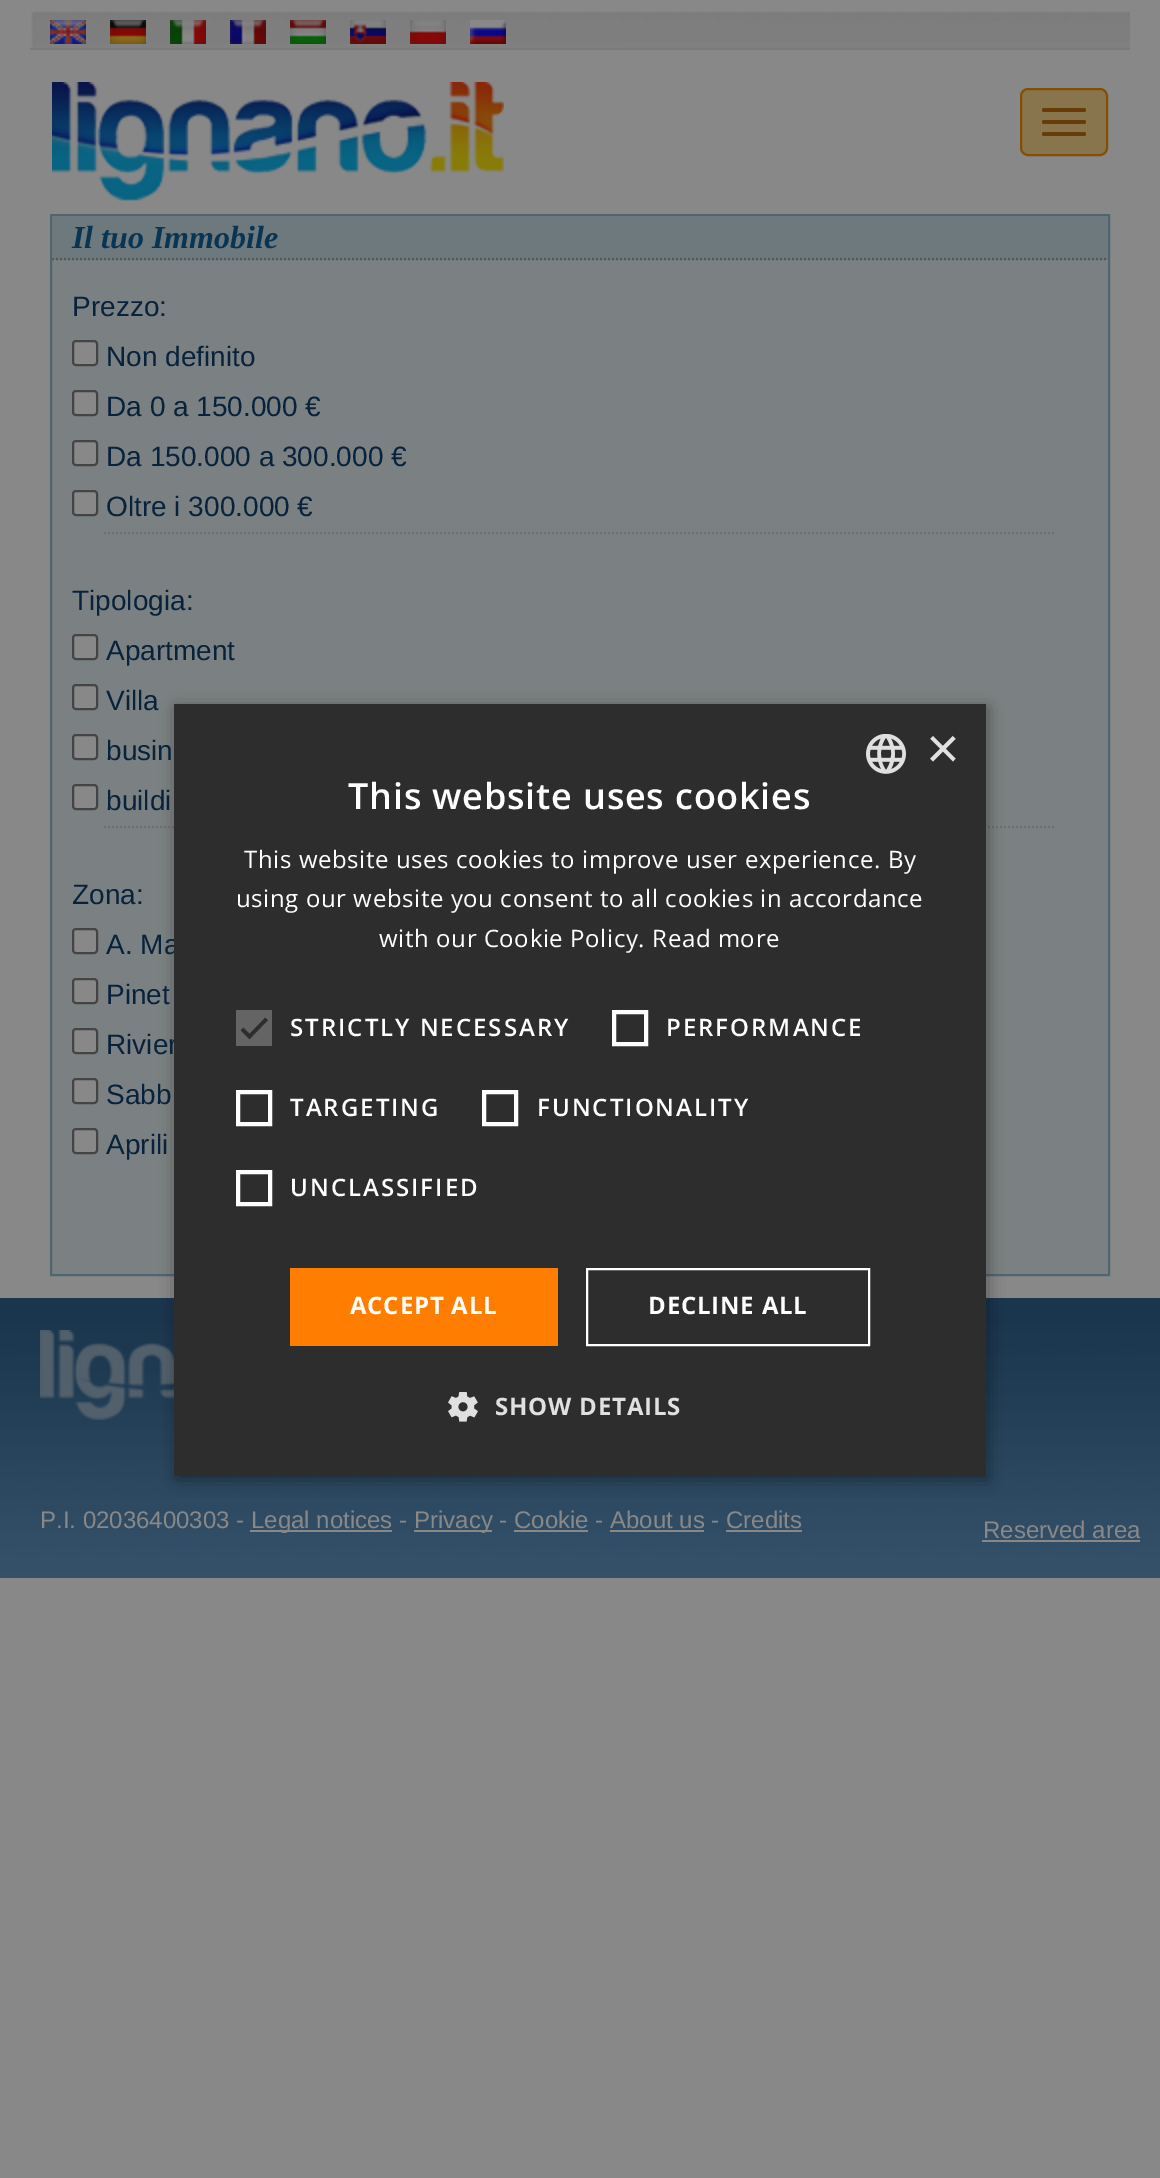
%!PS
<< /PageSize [1160 2178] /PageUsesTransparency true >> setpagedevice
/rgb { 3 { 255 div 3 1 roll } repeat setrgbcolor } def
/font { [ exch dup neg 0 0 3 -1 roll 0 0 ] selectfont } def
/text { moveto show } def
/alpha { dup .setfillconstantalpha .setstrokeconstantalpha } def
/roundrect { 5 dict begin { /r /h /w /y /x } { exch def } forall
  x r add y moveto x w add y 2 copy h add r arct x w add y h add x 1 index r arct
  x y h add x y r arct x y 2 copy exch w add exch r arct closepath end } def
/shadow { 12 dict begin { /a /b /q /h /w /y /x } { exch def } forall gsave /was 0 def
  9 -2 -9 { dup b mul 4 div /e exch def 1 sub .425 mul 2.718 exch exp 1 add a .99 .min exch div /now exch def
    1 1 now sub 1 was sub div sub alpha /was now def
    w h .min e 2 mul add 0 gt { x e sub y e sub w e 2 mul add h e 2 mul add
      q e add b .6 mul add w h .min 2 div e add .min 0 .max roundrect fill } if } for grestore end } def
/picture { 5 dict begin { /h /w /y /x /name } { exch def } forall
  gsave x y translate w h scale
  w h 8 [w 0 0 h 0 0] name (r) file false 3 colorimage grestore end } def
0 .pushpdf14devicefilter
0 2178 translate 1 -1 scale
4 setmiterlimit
136 136 136 rgb
0 0 1160 2178 rectfill
(img_01.rgb) 31 11 1099 37 picture
122 122 122 rgb
30 48 1100 2 rectfill
(img_02.rgb) 50 20 36 24 picture
(img_03.rgb) 110 20 36 24 picture
(img_04.rgb) 170 20 36 24 picture
(img_05.rgb) 230 20 36 24 picture
(img_06.rgb) 290 20 36 24 picture
(img_07.rgb) 350 20 36 24 picture
(img_08.rgb) 410 20 36 24 picture
(img_09.rgb) 470 20 36 24 picture
(img_10.rgb) 52 82 452 119 picture
136 117 77 rgb
1021 89 86 66 7 roundrect gsave fill grestore
130 79 9 rgb
2 setlinewidth
stroke
105 59 9 rgb
1042 108 44 4 2 roundrect fill
1042 120 44 4 2 roundrect fill
1042 132 44 4 2 roundrect fill
123 129 130 rgb
52 260 1056 1014 rectfill
80 101 112 rgb
51 215 1058 1060 rectstroke
109 121 124 rgb
52 216 1056 44 rectfill
86 86 86 rgb
[2 2] 0 setdash
52 259 moveto 1056 0 rlineto stroke
136 136 136 rgb
73 341 24 24 3 roundrect gsave fill grestore
68 68 68 rgb
[] 0 setdash
stroke
136 136 136 rgb
73 391 24 24 3 roundrect gsave fill grestore
68 68 68 rgb
stroke
136 136 136 rgb
73 441 24 24 3 roundrect gsave fill grestore
68 68 68 rgb
stroke
136 136 136 rgb
73 491 24 24 3 roundrect gsave fill grestore
68 68 68 rgb
stroke
111 111 111 rgb
[2 2] 0 setdash
104 533 moveto 952 0 rlineto stroke
136 136 136 rgb
73 635 24 24 3 roundrect gsave fill grestore
68 68 68 rgb
[] 0 setdash
stroke
136 136 136 rgb
73 685 24 24 3 roundrect gsave fill grestore
68 68 68 rgb
stroke
136 136 136 rgb
73 735 24 24 3 roundrect gsave fill grestore
68 68 68 rgb
stroke
136 136 136 rgb
73 785 24 24 3 roundrect gsave fill grestore
68 68 68 rgb
stroke
111 111 111 rgb
[2 2] 0 setdash
104 827 moveto 952 0 rlineto stroke
136 136 136 rgb
73 929 24 24 3 roundrect gsave fill grestore
68 68 68 rgb
[] 0 setdash
stroke
136 136 136 rgb
73 979 24 24 3 roundrect gsave fill grestore
68 68 68 rgb
stroke
136 136 136 rgb
73 1029 24 24 3 roundrect gsave fill grestore
68 68 68 rgb
stroke
136 136 136 rgb
73 1079 24 24 3 roundrect gsave fill grestore
68 68 68 rgb
stroke
136 136 136 rgb
73 1129 24 24 3 roundrect gsave fill grestore
68 68 68 rgb
stroke
(img_13.rgb) 0 1298 1160 280 picture
(img_14.rgb) 40 1330 134 90 picture
0 0 0 rgb
176 708 812 772 0 8 0.35 shadow
136 136 136 rgb
250 1530 142 2 rectfill
414 1530 78 2 rectfill
514 1530 74 2 rectfill
610 1530 94 2 rectfill
726 1530 76 2 rectfill
982 1540 158 2 rectfill
/LiberationSerif-BoldItalic 32 font
9 53 84 rgb
(Il tuo Immobile) 72 248 text
/LiberationSans-Regular 28 font
9 34 60 rgb
(Prezzo:) 72 316 text
(Non definito) 106 366 text
(Da 0 a 150.000 €) 106 416 text
(Da 150.000 a 300.000 €) 106 466 text
(Oltre i 300.000 €) 106 516 text
(Tipologia:) 72 610 text
(Apartment) 106 660 text
(Villa) 106 710 text
(busin) 106 760 text
(buildi) 106 810 text
(Zona:) 72 904 text
(A. Ma) 106 954 text
(Pinet) 106 1004 text
(Rivier) 106 1054 text
(Sabb) 106 1104 text
(Aprili) 106 1154 text
45 45 45 rgb
174 704 812 772 rectfill
(img_11.rgb) 866 734 40 40 picture
/LiberationSans-Regular 58 font
224 224 224 rgb
(×) 926 768 text
/OpenSans-SemiBold 36 font
255 255 255 rgb
348 809 moveto 0.8 0 (This website uses cookies) ashow
/OpenSans-Regular 24 font
244 868 moveto 0.6 0 (This website uses cookies to improve user experience. By) ashow
236 907 moveto 0.6 0 (using our website you consent to all cookies in accordance) ashow
379 947 moveto 0.6 0 (with our Cookie Policy. Read more) ashow
100 100 100 rgb
236 1010 36 36 rectfill
45 45 45 rgb
3.6 setlinewidth
242 1029 moveto 7.5 7.5 rlineto 17 -17.5 rlineto stroke
/OpenSans-SemiBold 24 font
255 255 255 rgb
290 1036 moveto 2 0 (STRICTLY NECESSARY) ashow
4 setlinewidth
614 1012 32 32 rectstroke
666 1036 moveto 2 0 (PERFORMANCE) ashow
238 1092 32 32 rectstroke
290 1116 moveto 2 0 (TARGETING) ashow
484 1092 32 32 rectstroke
537 1116 moveto 2 0 (FUNCTIONALITY) ashow
238 1172 32 32 rectstroke
290 1196 moveto 2 0 (UNCLASSIFIED) ashow
255 125 0 rgb
290 1268 268 78 rectfill
/OpenSans-Bold 24 font
255 255 255 rgb
350 1314 moveto 0.8 0 (ACCEPT ALL) ashow
2 setlinewidth
587 1269 282 76 rectstroke
648 1314 moveto 0.8 0 (DECLINE ALL) ashow
(img_12.rgb) 448 1392 30 30 picture
224 224 224 rgb
495 1415 moveto 0.8 0 (SHOW DETAILS) ashow
/LiberationSans-Regular 24 font
136 136 136 rgb
(P.I. 02036400303 -) 40 1528 text
(Legal notices -) 251 1528 text
(Privacy - Cookie - About us - Credits) 414 1528 text
(Reserved area) 983 1538 text
.poppdf14devicefilter showpage
